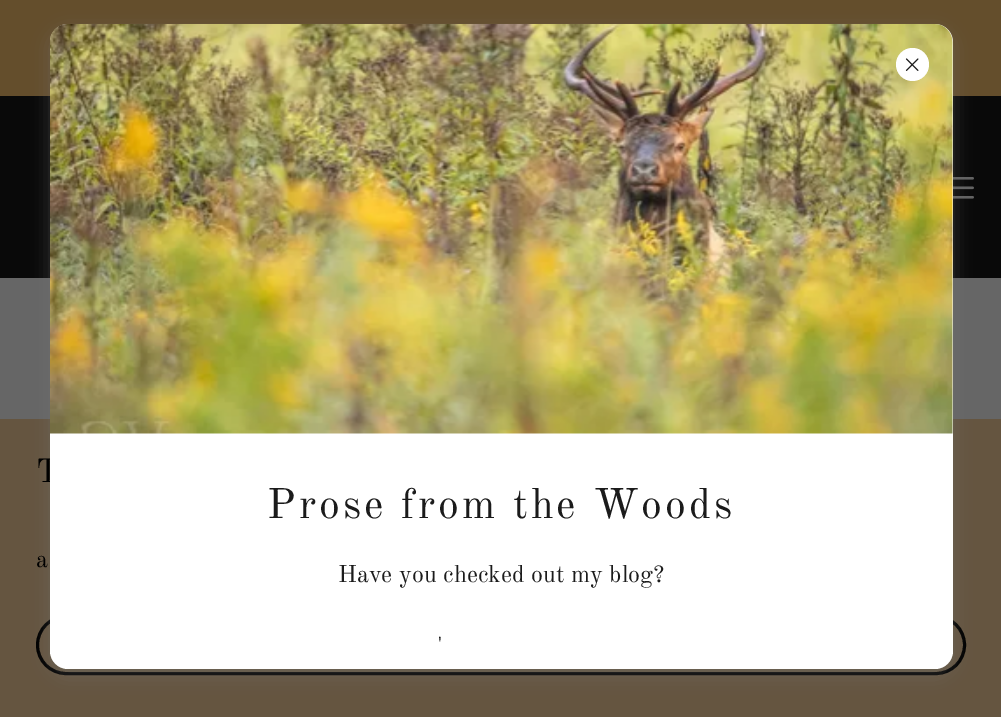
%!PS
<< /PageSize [1001 717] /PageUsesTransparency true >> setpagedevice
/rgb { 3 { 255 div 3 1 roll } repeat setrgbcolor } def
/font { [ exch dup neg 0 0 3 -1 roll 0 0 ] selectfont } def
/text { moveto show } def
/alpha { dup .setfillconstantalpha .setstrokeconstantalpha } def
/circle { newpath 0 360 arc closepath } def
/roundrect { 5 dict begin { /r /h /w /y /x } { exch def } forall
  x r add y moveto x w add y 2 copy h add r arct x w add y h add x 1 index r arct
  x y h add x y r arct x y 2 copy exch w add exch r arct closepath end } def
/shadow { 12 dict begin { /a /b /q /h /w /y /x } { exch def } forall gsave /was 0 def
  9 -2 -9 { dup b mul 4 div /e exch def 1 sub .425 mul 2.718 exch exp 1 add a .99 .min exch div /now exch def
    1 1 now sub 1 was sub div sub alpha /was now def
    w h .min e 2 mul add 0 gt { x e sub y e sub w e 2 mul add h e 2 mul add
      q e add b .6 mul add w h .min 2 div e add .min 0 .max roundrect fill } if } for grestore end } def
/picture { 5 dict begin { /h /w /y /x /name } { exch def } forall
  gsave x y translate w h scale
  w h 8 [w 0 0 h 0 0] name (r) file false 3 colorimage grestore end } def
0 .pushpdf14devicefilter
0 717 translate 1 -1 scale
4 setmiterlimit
9 9 9 rgb
0 0 1001 717 rectfill
100 78 44 rgb
0 0 1001 96 rectfill
(img_01.rgb) 953 177 21 22 picture
102 102 102 rgb
0 278 1001 141 rectfill
101 85 64 rgb
0 419 1001 298 rectfill
0 0 0 rgb
3 setlinewidth
37.5 616.5 927 57 28.5 roundrect stroke
117 117 117 rgb
50 30 903 645 18 9 0.4 shadow
/OldStandardTT-Regular 33 font
0 0 0 rgb
36 482 moveto 3 0 (T) ashow
/OldStandardTT-Regular 24 font
(a) 36 567 text
255 255 255 rgb
50 24 903 645 18 roundrect fill
(img_03.rgb) 50 24 903 410 picture
912.5 64.5 16.5 circle fill
(img_02.rgb) 905 58 14 13 picture
/OldStandardTT-Regular 42 font
27 27 27 rgb
267 518 moveto 3 0 (Prose from the Woods) ashow
/OldStandardTT-Regular 24 font
(Have you checked out my blog?) 338 582 text
(') 437 654 text
.poppdf14devicefilter showpage
